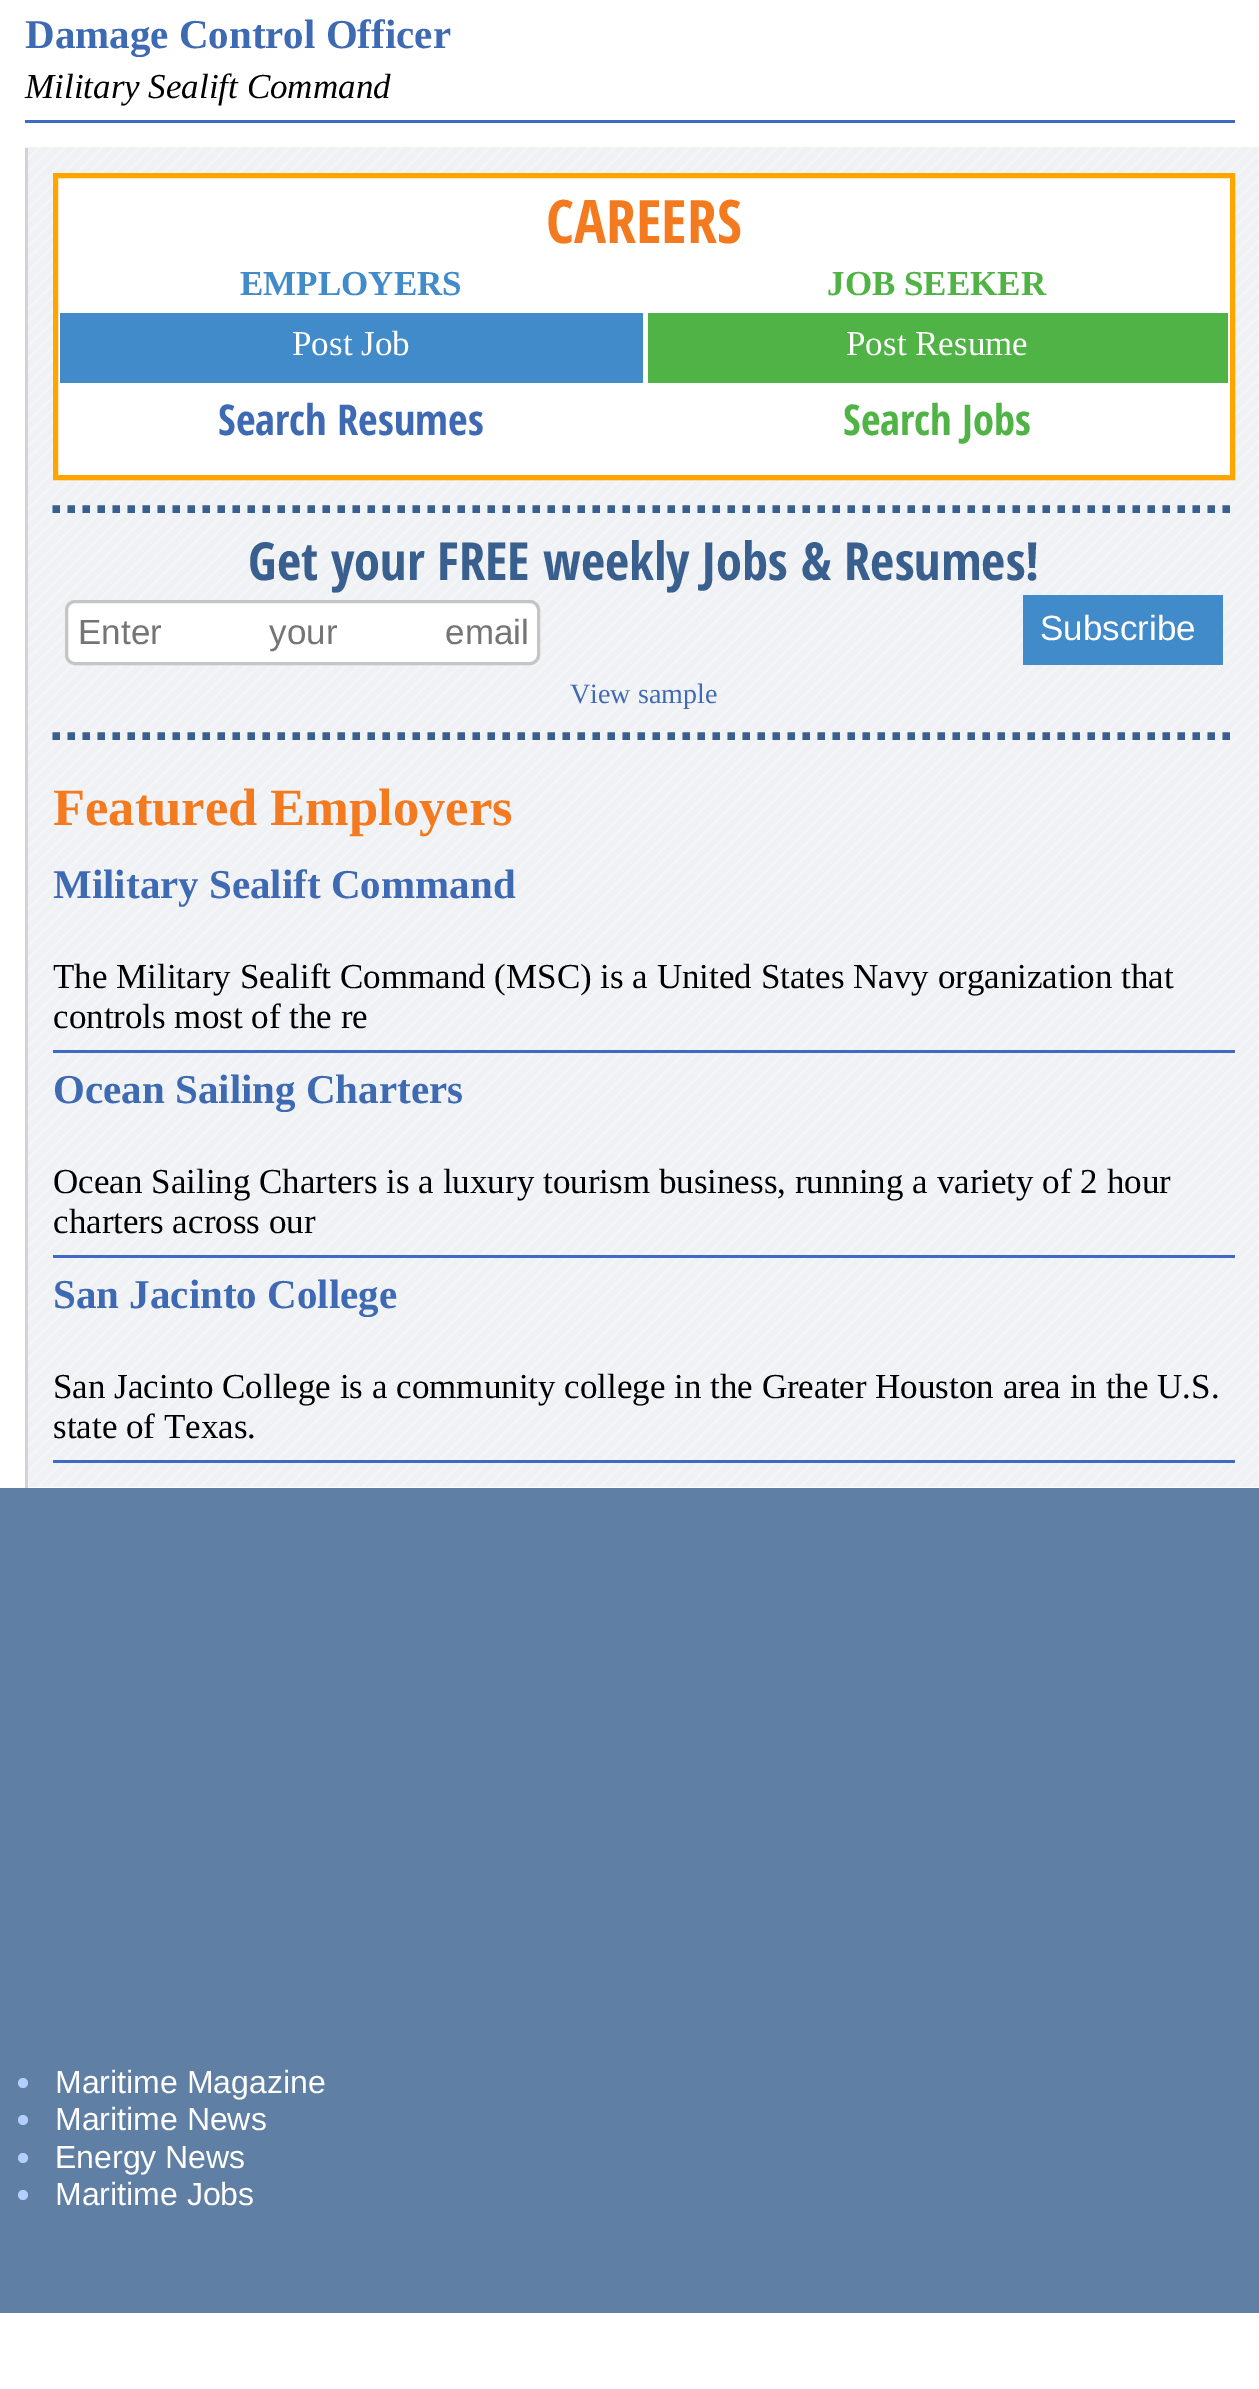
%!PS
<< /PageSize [1259 2389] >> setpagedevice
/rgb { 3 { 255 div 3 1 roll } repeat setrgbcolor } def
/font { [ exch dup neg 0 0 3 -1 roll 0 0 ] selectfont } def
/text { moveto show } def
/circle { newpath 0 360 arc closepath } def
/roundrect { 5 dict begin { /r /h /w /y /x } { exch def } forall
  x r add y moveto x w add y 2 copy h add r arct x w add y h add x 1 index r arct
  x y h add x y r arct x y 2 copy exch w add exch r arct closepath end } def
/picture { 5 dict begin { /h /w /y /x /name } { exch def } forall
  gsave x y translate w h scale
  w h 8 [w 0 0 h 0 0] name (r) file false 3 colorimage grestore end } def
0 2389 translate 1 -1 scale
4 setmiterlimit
255 255 255 rgb
0 0 1259 2389 rectfill
62 106 195 rgb
25 120 1210 3 rectfill
(img_01.rgb) 25 147 1234 1340 picture
211 211 211 rgb
25 148 3 1340 rectfill
255 255 255 rgb
55.5 175.5 moveto 1177 0 rlineto 0 302 rlineto -1177 0 rlineto closepath gsave fill grestore
255 165 0 rgb
5 setlinewidth
stroke
66 139 202 rgb
60 313 583 70 rectfill
80 179 70 rgb
648 313 580 70 rectfill
56 95 141 rgb
7.5 setlinewidth
[7.5 7.5] 0 setdash
52.5 509 moveto 1182.5 0 rlineto stroke
52.5 736 moveto 1182.5 0 rlineto stroke
255 255 255 rgb
66.5 601.5 472 62 8.5 roundrect gsave fill grestore
197 197 197 rgb
3 setlinewidth
[] 0 setdash
stroke
66 139 202 rgb
1023 595 200 70 rectfill
62 106 195 rgb
53 1050 1182 3 rectfill
53 1255 1182 3 rectfill
53 1460 1182 3 rectfill
96 127 164 rgb
0 1488 1259 825 rectfill
179 206 255 rgb
23 2083 5 circle fill
23 2120 5 circle fill
23 2158 5 circle fill
23 2195 5 circle fill
/LiberationSerif-Bold 41 font
62 106 179 rgb
(Damage Control Officer) 25 48 text
/LiberationSerif-Italic 35 font
0 0 0 rgb
(Military Sealift Command) 25 98 text
/OpenSansCondensed-Bold 60 font
244 122 32 rgb
(CAREERS) 546 243 text
/LiberationSerif-Bold 35 font
66 139 202 rgb
(EMPLOYERS) 240 295 text
/LiberationSerif-Regular 35 font
255 255 255 rgb
(Post Job) 292 355 text
/OpenSansCondensed-Bold 42.5 font
62 106 179 rgb
(Search Resumes) 218 435 text
/LiberationSerif-Bold 35 font
80 179 70 rgb
(JOB SEEKER) 827 295 text
/LiberationSerif-Regular 35 font
255 255 255 rgb
(Post Resume) 846 355 text
/OpenSansCondensed-Bold 42.5 font
80 179 70 rgb
(Search Jobs) 843 435 text
/OpenSansCondensed-Bold 52.5 font
56 95 141 rgb
(Get your FREE weekly Jobs & Resumes!) 248 580 text
/LiberationSans-Regular 35 font
117 117 117 rgb
78 644 moveto 98 0 32 (Enter your email) widthshow
255 255 255 rgb
(Subscribe) 1040 640 text
/LiberationSerif-Regular 28 font
62 106 179 rgb
(View sample) 570 703 text
/LiberationSerif-Bold 52.5 font
244 122 32 rgb
(Featured Employers) 53 825 text
/LiberationSerif-Bold 41 font
62 106 179 rgb
(Military Sealift Command) 53 898 text
/LiberationSerif-Regular 35 font
0 0 0 rgb
(The Military Sealift Command \(MSC\) is a United States Navy organization that) 53 988 text
(controls most of the re) 53 1028 text
/LiberationSerif-Bold 41 font
62 106 179 rgb
(Ocean Sailing Charters) 53 1103 text
/LiberationSerif-Regular 35 font
0 0 0 rgb
(Ocean Sailing Charters is a luxury tourism business, running a variety of 2 hour) 53 1193 text
(charters across our) 53 1233 text
/LiberationSerif-Bold 41 font
62 106 179 rgb
(San Jacinto College) 53 1308 text
/LiberationSerif-Regular 35 font
0 0 0 rgb
(San Jacinto College is a community college in the Greater Houston area in the U.S.) 53 1398 text
(state of Texas.) 53 1438 text
/LiberationSans-Regular 32 font
255 255 255 rgb
(Maritime Magazine) 55 2093 text
(Maritime News) 55 2130 text
(Energy News) 55 2168 text
(Maritime Jobs) 55 2205 text
showpage
